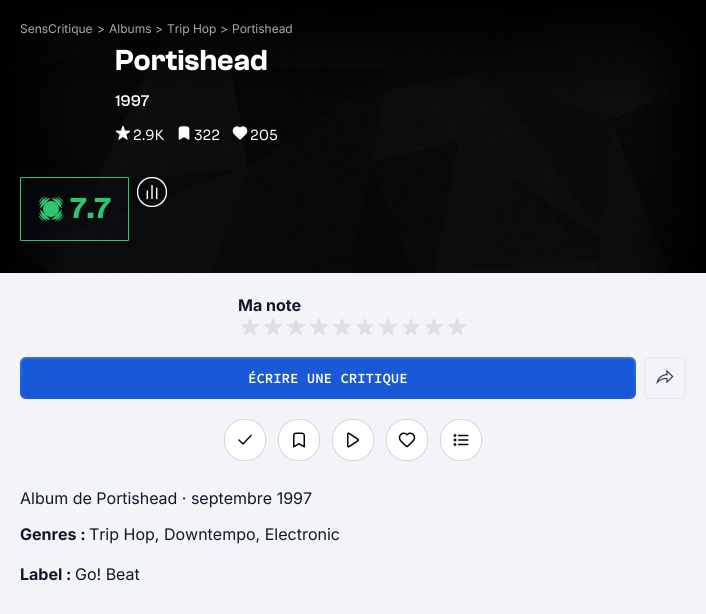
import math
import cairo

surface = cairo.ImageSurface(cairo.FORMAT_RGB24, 706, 614)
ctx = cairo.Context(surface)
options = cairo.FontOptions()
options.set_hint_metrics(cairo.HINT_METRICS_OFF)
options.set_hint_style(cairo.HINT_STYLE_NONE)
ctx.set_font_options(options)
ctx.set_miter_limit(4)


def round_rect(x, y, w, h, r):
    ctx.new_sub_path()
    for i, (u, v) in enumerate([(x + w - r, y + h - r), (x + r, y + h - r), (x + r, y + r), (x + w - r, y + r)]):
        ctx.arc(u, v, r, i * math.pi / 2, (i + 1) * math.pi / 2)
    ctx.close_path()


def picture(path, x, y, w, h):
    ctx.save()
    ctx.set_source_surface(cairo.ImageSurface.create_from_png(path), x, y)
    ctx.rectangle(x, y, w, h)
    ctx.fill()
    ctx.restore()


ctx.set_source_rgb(0.949, 0.957, 0.969)
ctx.paint()
picture("img1.png", 0, 0, 706, 273)
ctx.select_font_face("Inter")
ctx.set_font_size(12)
ctx.set_source_rgb(0.651, 0.667, 0.686)
ctx.move_to(20, 33)
ctx.show_text("SensCritique")
ctx.move_to(97, 33)
ctx.show_text(">")
ctx.move_to(109, 33)
ctx.show_text("Albums")
ctx.move_to(155, 33)
ctx.show_text(">")
ctx.move_to(167, 33)
ctx.show_text("Trip Hop")
ctx.move_to(220, 33)
ctx.show_text(">")
ctx.move_to(232, 33)
ctx.show_text("Portishead")
ctx.select_font_face("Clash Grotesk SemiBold")
ctx.set_font_size(30)
ctx.set_source_rgb(1, 1, 1)
ctx.move_to(115, 70)
ctx.show_text("Portishead")
ctx.select_font_face("Clash Grotesk Medium")
ctx.set_font_size(16)
ctx.move_to(115, 106)
ctx.show_text("1997")
picture("img2.png", 115, 125, 16, 15)
ctx.select_font_face("Sora")
ctx.set_font_size(14)
ctx.move_to(133, 140)
ctx.show_text("2.9K")
picture("img3.png", 178, 126, 12, 14)
ctx.move_to(194, 140)
ctx.show_text("322")
picture("img4.png", 232, 126, 16, 14)
ctx.move_to(250, 140)
ctx.show_text("205")
ctx.set_source_rgba(0.047, 0.067, 0.114, 0.3)
round_rect(20.5, 177.5, 108, 63, 0.5)
ctx.fill_preserve()
ctx.set_source_rgb(0.184, 0.769, 0.435)
ctx.set_line_width(1)
ctx.stroke()
picture("img5.png", 38, 196, 26, 26)
ctx.select_font_face("Clash Grotesk SemiBold")
ctx.set_font_size(30)
ctx.move_to(70, 218)
ctx.show_text("7.7")
picture("img6.png", 137, 177, 30, 30)
ctx.select_font_face("Inter", cairo.FONT_SLANT_NORMAL, cairo.FONT_WEIGHT_BOLD)
ctx.set_font_size(16)
ctx.set_source_rgb(0.063, 0.094, 0.157)
ctx.move_to(238, 311)
ctx.show_text("Ma note")
picture("img7.png", 241, 318, 18, 17)
picture("img7.png", 264, 318, 18, 17)
picture("img7.png", 287, 318, 18, 17)
picture("img7.png", 310, 318, 18, 17)
picture("img7.png", 333, 318, 18, 17)
picture("img7.png", 356, 318, 18, 17)
picture("img7.png", 379, 318, 18, 17)
picture("img7.png", 402, 318, 18, 17)
picture("img7.png", 425, 318, 18, 17)
picture("img7.png", 448, 318, 18, 17)
gradient = cairo.LinearGradient(328, 357, 328, 399)
gradient.add_color_stop_rgba(0, 0.208, 0.427, 0.863, 1)
gradient.add_color_stop_rgba(1, 0.102, 0.353, 0.843, 1)
ctx.set_source(gradient)
round_rect(20, 357, 616, 42, 6)
ctx.fill()
ctx.set_source_rgb(0.098, 0.349, 0.843)
round_rect(22, 359, 612, 38, 4)
ctx.fill()
ctx.select_font_face("Source Code Pro SemiBold")
ctx.set_font_size(14)
ctx.set_source_rgb(1, 1, 1)
ctx.move_to(248, 383)
ctx.show_text("ÉCRIRE UNE CRITIQUE")
round_rect(644.5, 357.5, 41, 41, 5.5)
ctx.set_source_rgb(0.894, 0.906, 0.925)
ctx.stroke()
picture("img8.png", 656, 369, 18, 15)
ctx.set_source_rgb(1, 1, 1)
round_rect(224.5, 419.5, 41, 41, 19.5)
ctx.fill_preserve()
ctx.set_source_rgb(0.816, 0.835, 0.867)
ctx.stroke()
ctx.save()
round_rect(225, 420, 40, 40, 19)
ctx.clip()
ctx.set_source_rgb(1, 1, 1)
ctx.arc(245, 440, 20, 0, 2 * math.pi)
ctx.fill()
ctx.restore()
ctx.new_path()
ctx.move_to(251, 435.5)
ctx.line_to(243, 444)
ctx.line_to(239, 440)
ctx.set_source_rgb(0, 0, 0)
ctx.set_line_width(1.4)
ctx.set_line_cap(cairo.LINE_CAP_ROUND)
ctx.set_line_join(cairo.LINE_JOIN_ROUND)
ctx.stroke()
ctx.set_source_rgb(1, 1, 1)
round_rect(278.5, 419.5, 41, 41, 19.5)
ctx.fill_preserve()
ctx.set_source_rgb(0.816, 0.835, 0.867)
ctx.set_line_width(1)
ctx.set_line_cap(cairo.LINE_CAP_BUTT)
ctx.set_line_join(cairo.LINE_JOIN_MITER)
ctx.stroke()
ctx.save()
round_rect(279, 420, 40, 40, 19)
ctx.clip()
ctx.set_source_rgb(1, 1, 1)
ctx.arc(299, 440, 20, 0, 2 * math.pi)
ctx.fill()
ctx.restore()
picture("img9.png", 293, 432, 12, 16)
ctx.set_source_rgb(1, 1, 1)
round_rect(332.5, 419.5, 41, 41, 19.5)
ctx.fill_preserve()
ctx.set_source_rgb(0.816, 0.835, 0.867)
ctx.stroke()
ctx.save()
round_rect(333, 420, 40, 40, 19)
ctx.clip()
ctx.set_source_rgb(1, 1, 1)
ctx.arc(353, 440, 20, 0, 2 * math.pi)
ctx.fill()
ctx.restore()
picture("img10.png", 347, 432, 12, 16)
ctx.set_source_rgb(1, 1, 1)
round_rect(386.5, 419.5, 41, 41, 19.5)
ctx.fill_preserve()
ctx.set_source_rgb(0.816, 0.835, 0.867)
ctx.stroke()
ctx.save()
round_rect(387, 420, 40, 40, 19)
ctx.clip()
ctx.set_source_rgb(1, 1, 1)
ctx.arc(407, 440, 20, 0, 2 * math.pi)
ctx.fill()
ctx.restore()
picture("img11.png", 398, 432, 18, 16)
ctx.set_source_rgb(1, 1, 1)
round_rect(440.5, 419.5, 41, 41, 19.5)
ctx.fill_preserve()
ctx.set_source_rgb(0.816, 0.835, 0.867)
ctx.stroke()
ctx.save()
round_rect(441, 420, 40, 40, 19)
ctx.clip()
ctx.set_source_rgb(1, 1, 1)
ctx.arc(461, 440, 20, 0, 2 * math.pi)
ctx.fill()
ctx.restore()
picture("img12.png", 453, 434, 16, 12)
ctx.select_font_face("Inter")
ctx.set_font_size(16)
ctx.set_source_rgb(0.063, 0.094, 0.157)
ctx.move_to(20, 504)
ctx.show_text("Album de Portishead · septembre 1997")
ctx.select_font_face("Inter", cairo.FONT_SLANT_NORMAL, cairo.FONT_WEIGHT_BOLD)
ctx.move_to(20, 540)
ctx.show_text("Genres :")
ctx.select_font_face("Inter")
ctx.move_to(89, 540)
ctx.show_text("Trip Hop, Downtempo, Electronic")
ctx.select_font_face("Inter", cairo.FONT_SLANT_NORMAL, cairo.FONT_WEIGHT_BOLD)
ctx.move_to(20, 580)
ctx.show_text("Label :")
ctx.select_font_face("Inter")
ctx.move_to(75, 580)
ctx.show_text("Go! Beat")
surface.write_to_png("page.png")
